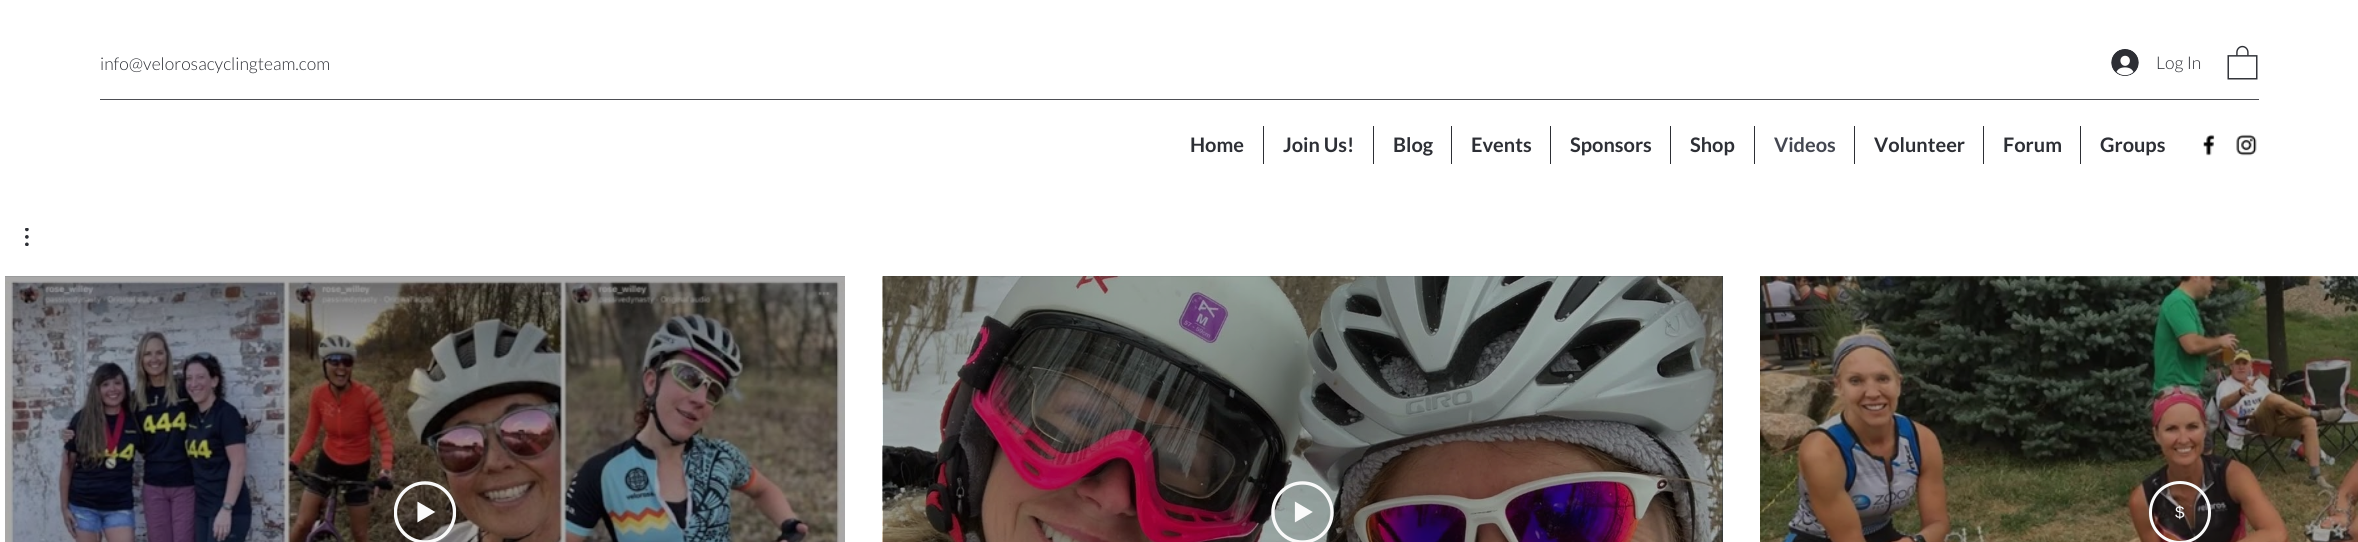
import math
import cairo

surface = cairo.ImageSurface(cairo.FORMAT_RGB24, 2358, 542)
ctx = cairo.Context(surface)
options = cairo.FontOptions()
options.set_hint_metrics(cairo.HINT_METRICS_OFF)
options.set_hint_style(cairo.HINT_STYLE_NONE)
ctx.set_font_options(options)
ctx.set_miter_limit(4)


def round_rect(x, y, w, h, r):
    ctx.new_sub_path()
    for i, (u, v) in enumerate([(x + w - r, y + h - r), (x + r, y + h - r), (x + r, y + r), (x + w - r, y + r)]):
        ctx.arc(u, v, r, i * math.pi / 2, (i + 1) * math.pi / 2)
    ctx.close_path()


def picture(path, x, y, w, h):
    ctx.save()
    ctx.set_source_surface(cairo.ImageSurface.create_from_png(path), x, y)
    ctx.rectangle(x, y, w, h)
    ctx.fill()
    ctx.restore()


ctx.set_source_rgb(1, 1, 1)
ctx.paint()
ctx.select_font_face("Lato Light")
ctx.set_font_size(17.5)
ctx.set_source_rgb(0.176, 0.184, 0.208)
ctx.move_to(100, 70)
ctx.show_text("info@velorosacyclingteam.com")
picture("img1.png", 2111, 49, 28, 27)
ctx.move_to(2156, 69)
ctx.show_text("Log In")
picture("img2.png", 2227, 45, 31, 35)
ctx.set_source_rgb(0.302, 0.306, 0.325)
ctx.rectangle(100, 99, 2159, 1)
ctx.fill()
ctx.select_font_face("Lato", cairo.FONT_SLANT_NORMAL, cairo.FONT_WEIGHT_BOLD)
ctx.set_font_size(20)
ctx.set_source_rgb(0.176, 0.184, 0.208)
ctx.move_to(1190, 152)
ctx.show_text("Home")
ctx.rectangle(1263, 126, 1, 38)
ctx.fill()
ctx.move_to(1283, 152)
ctx.show_text("Join Us!")
ctx.rectangle(1373, 126, 1, 38)
ctx.fill()
ctx.move_to(1393, 152)
ctx.show_text("Blog")
ctx.rectangle(1451, 126, 1, 38)
ctx.fill()
ctx.move_to(1471, 152)
ctx.show_text("Events")
ctx.rectangle(1550, 126, 1, 38)
ctx.fill()
ctx.move_to(1570, 152)
ctx.show_text("Sponsors")
ctx.rectangle(1670, 126, 1, 38)
ctx.fill()
ctx.move_to(1690, 152)
ctx.show_text("Shop")
ctx.rectangle(1754, 126, 1, 38)
ctx.fill()
ctx.set_source_rgb(0.267, 0.278, 0.318)
ctx.move_to(1774, 152)
ctx.show_text("Videos")
ctx.set_source_rgb(0.176, 0.184, 0.208)
ctx.rectangle(1854, 126, 1, 38)
ctx.fill()
ctx.move_to(1874, 152)
ctx.show_text("Volunteer")
ctx.rectangle(1983, 126, 1, 38)
ctx.fill()
ctx.move_to(2003, 152)
ctx.show_text("Forum")
ctx.rectangle(2080, 126, 1, 38)
ctx.fill()
ctx.move_to(2100, 152)
ctx.show_text("Groups")
picture("img3.png", 2203, 134, 12, 22)
picture("img4.png", 2236, 134, 21, 22)
picture("img5.png", 25, 228, 4, 18)
picture("img6.png", 5, 277, 840, 265)
ctx.set_source_rgb(0.604, 0.608, 0.612)
ctx.rectangle(5, 276, 840, 1)
ctx.fill()
picture("img7.png", 394, 481, 62, 61)
ctx.set_source_rgb(0.145, 0.188, 0.243)
ctx.rectangle(883, 276, 840, 266)
ctx.fill()
picture("img8.png", 882, 276, 841, 266)
picture("img9.png", 882, 276, 841, 266)
picture("img10.png", 1271, 481, 63, 61)
picture("img11.png", 1760, 276, 598, 266)
picture("img12.png", 1760, 276, 598, 1)
round_rect(2150.5, 482.5, 59, 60, 29.5)
ctx.set_source_rgb(0.98, 0.98, 0.98)
ctx.set_line_width(3)
ctx.stroke()
ctx.select_font_face("Liberation Sans")
ctx.set_font_size(17)
ctx.move_to(2175, 518)
ctx.show_text("$")
surface.write_to_png("page.png")
